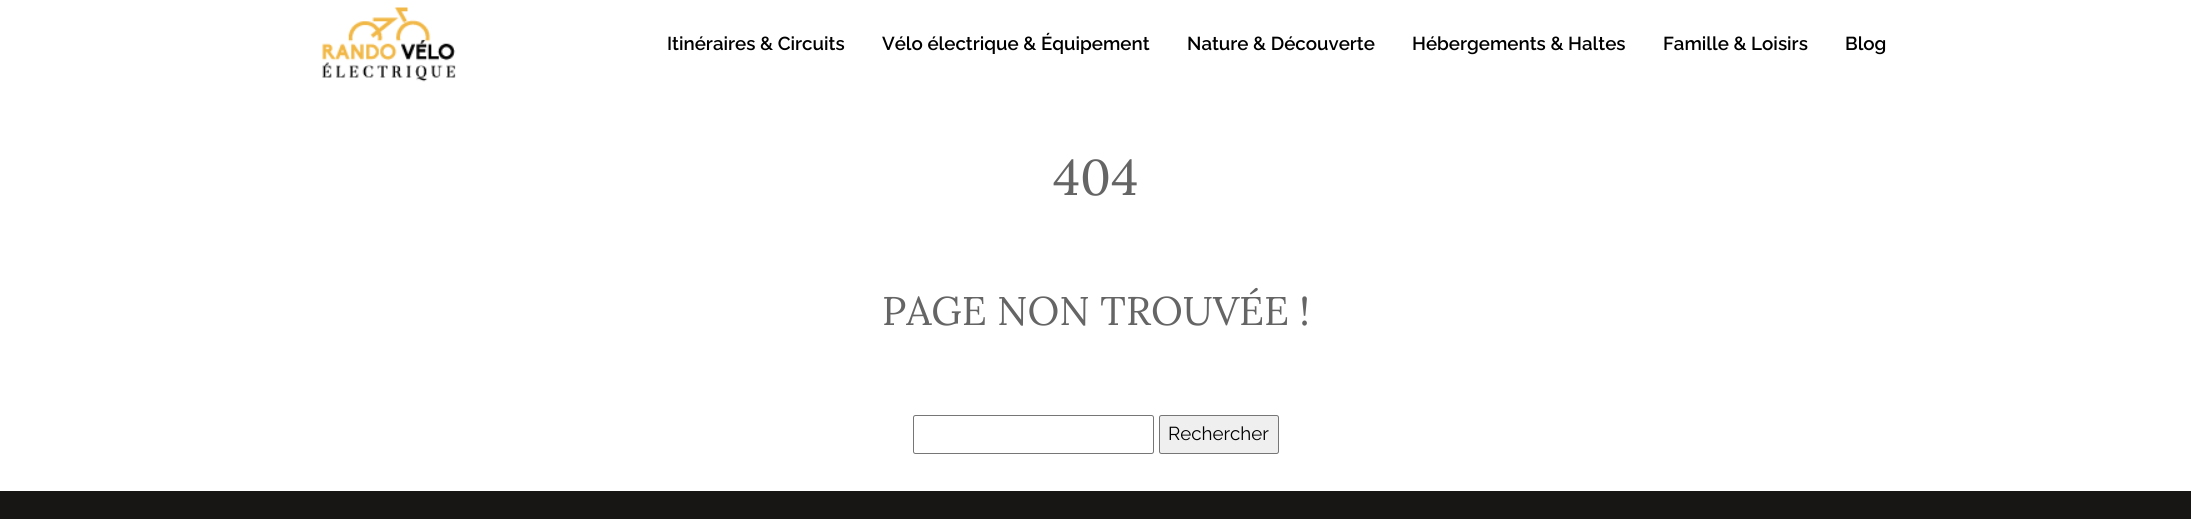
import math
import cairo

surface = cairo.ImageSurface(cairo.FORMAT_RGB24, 2191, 519)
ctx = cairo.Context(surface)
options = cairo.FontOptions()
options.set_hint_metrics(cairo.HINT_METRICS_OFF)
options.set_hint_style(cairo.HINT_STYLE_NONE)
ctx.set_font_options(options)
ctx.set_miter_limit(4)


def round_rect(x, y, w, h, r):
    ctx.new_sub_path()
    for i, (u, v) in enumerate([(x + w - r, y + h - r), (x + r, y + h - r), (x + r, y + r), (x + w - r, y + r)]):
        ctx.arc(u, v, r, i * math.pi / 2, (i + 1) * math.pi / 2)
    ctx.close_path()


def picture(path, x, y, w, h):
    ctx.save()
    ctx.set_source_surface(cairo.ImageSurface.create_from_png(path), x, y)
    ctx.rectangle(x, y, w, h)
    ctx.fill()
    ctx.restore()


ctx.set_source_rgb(1, 1, 1)
ctx.paint()
picture("img1.png", 322, 7, 134, 75)
ctx.select_font_face("Raleway SemiBold")
ctx.set_font_size(18.75)
ctx.set_source_rgb(0, 0, 0)
ctx.move_to(667, 50)
ctx.show_text("Itinéraires & Circuits")
ctx.move_to(882, 50)
ctx.show_text("Vélo électrique & Équipement")
ctx.move_to(1187, 50)
ctx.show_text("Nature & Découverte")
ctx.move_to(1412, 50)
ctx.show_text("Hébergements & Haltes")
ctx.move_to(1663, 50)
ctx.show_text("Famille & Loisirs")
ctx.move_to(1845, 50)
ctx.show_text("Blog")
ctx.select_font_face("Lora")
ctx.set_font_size(50)
ctx.set_source_rgb(0.396, 0.396, 0.396)
ctx.move_to(1053, 195)
ctx.show_text("404")
ctx.set_font_size(40)
ctx.move_to(882, 325)
ctx.show_text("PAGE NON TROUVÉE !")
round_rect(913.5, 415.5, 240, 38, 2)
ctx.set_source_rgb(0.463, 0.463, 0.463)
ctx.set_line_width(1)
ctx.stroke()
ctx.set_source_rgb(0.937, 0.937, 0.937)
round_rect(1159.5, 415.5, 119, 38, 2)
ctx.fill_preserve()
ctx.set_source_rgb(0.463, 0.463, 0.463)
ctx.stroke()
ctx.select_font_face("Raleway")
ctx.set_font_size(18.75)
ctx.set_source_rgb(0, 0, 0)
ctx.move_to(1168, 440)
ctx.show_text("Rechercher")
ctx.set_source_rgb(0.09, 0.086, 0.082)
ctx.rectangle(0, 491, 2191, 28)
ctx.fill()
surface.write_to_png("page.png")
